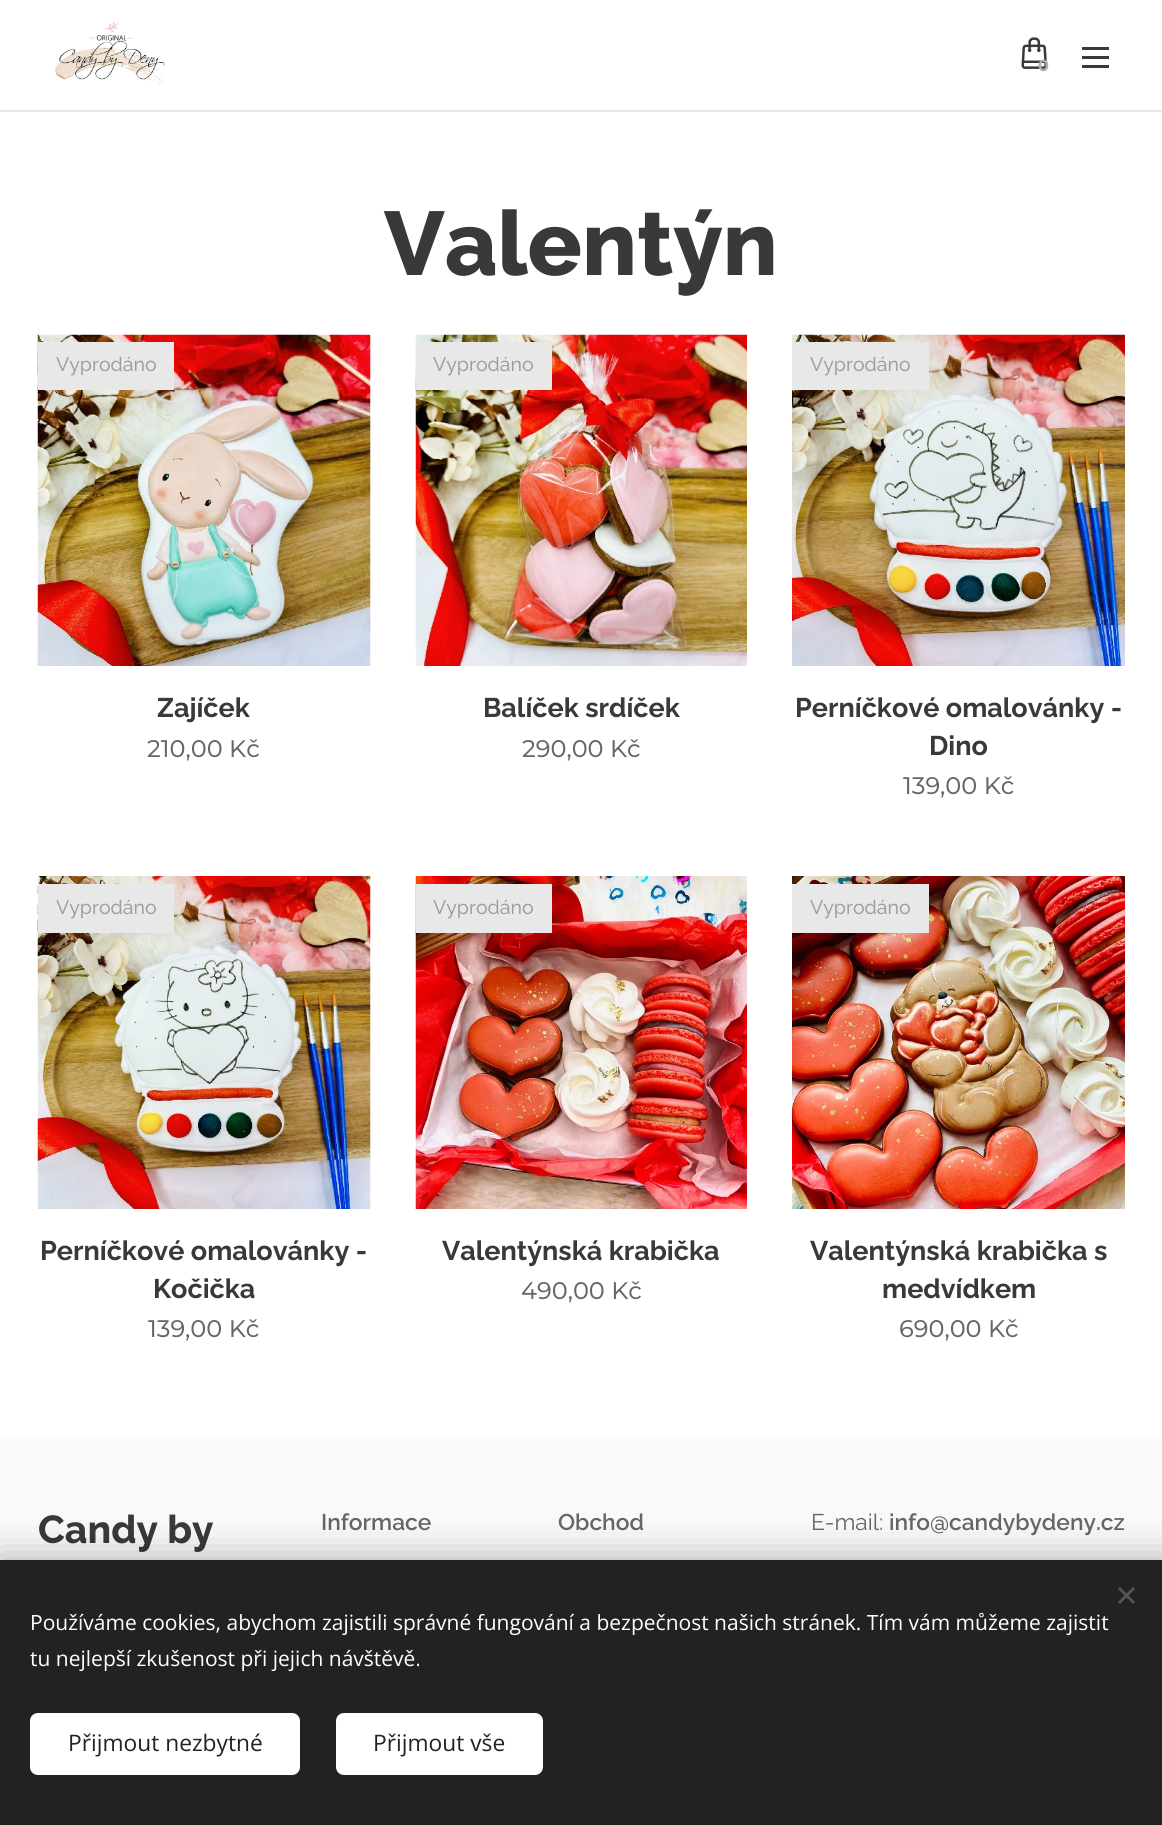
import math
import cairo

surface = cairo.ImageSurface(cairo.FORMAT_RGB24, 1162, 1825)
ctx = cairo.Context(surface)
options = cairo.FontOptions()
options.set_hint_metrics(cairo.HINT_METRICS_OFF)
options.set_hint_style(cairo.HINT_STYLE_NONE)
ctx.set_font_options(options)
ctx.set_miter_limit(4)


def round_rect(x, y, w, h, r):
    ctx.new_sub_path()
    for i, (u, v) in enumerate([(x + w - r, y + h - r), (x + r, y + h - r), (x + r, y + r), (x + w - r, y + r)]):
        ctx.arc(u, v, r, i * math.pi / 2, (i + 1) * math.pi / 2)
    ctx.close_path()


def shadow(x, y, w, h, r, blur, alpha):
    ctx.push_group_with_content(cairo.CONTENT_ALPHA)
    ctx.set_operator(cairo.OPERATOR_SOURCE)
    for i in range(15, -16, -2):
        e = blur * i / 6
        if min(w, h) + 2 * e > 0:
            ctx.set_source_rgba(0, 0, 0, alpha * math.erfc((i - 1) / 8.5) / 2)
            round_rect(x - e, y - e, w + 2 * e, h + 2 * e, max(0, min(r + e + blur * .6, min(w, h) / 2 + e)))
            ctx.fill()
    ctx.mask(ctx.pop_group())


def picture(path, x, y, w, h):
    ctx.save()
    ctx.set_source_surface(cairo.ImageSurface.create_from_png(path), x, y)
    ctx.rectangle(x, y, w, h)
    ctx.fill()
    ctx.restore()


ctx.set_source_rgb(1, 1, 1)
ctx.paint()
picture("img1.png", 55, 22, 112, 63)
picture("img2.png", 1021, 37, 26, 32)
ctx.select_font_face("Montserrat", cairo.FONT_SLANT_NORMAL, cairo.FONT_WEIGHT_BOLD)
ctx.set_font_size(16)
ctx.set_source_rgb(0.682, 0.682, 0.682)
ctx.move_to(1038, 71)
ctx.show_text("0")
ctx.set_source_rgb(0.224, 0.224, 0.224)
ctx.rectangle(1082, 56, 27, 3)
ctx.fill()
ctx.rectangle(1082, 47, 27, 3)
ctx.fill()
ctx.rectangle(1082, 65, 27, 3)
ctx.fill()
ctx.set_source_rgb(0.91, 0.91, 0.91)
ctx.rectangle(0, 110, 1162, 2)
ctx.fill()
ctx.select_font_face("Raleway ExtraBold")
ctx.set_font_size(90)
ctx.set_source_rgb(0.224, 0.224, 0.224)
ctx.move_to(384, 275)
ctx.show_text("Valentýn")
picture("img3.png", 37, 334, 334, 332)
ctx.set_source_rgb(0.91, 0.91, 0.91)
ctx.rectangle(38, 342, 136, 48)
ctx.fill()
ctx.select_font_face("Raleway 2")
ctx.set_font_size(19.5)
ctx.set_source_rgb(0.616, 0.616, 0.616)
ctx.move_to(56, 371)
ctx.show_text("Vyprodáno")
ctx.select_font_face("Raleway 2", cairo.FONT_SLANT_NORMAL, cairo.FONT_WEIGHT_BOLD)
ctx.set_font_size(27)
ctx.set_source_rgb(0.224, 0.224, 0.224)
ctx.move_to(157, 717)
ctx.show_text("Zajíček")
ctx.select_font_face("Montserrat")
ctx.set_font_size(24)
ctx.set_source_rgb(0.4, 0.4, 0.4)
ctx.move_to(147, 757)
ctx.show_text("210,00 Kč")
picture("img4.png", 415, 334, 332, 332)
ctx.set_source_rgb(0.91, 0.91, 0.91)
ctx.rectangle(416, 342, 136, 48)
ctx.fill()
ctx.select_font_face("Raleway 2")
ctx.set_font_size(19.5)
ctx.set_source_rgb(0.616, 0.616, 0.616)
ctx.move_to(433, 371)
ctx.show_text("Vyprodáno")
ctx.select_font_face("Raleway 2", cairo.FONT_SLANT_NORMAL, cairo.FONT_WEIGHT_BOLD)
ctx.set_font_size(27)
ctx.set_source_rgb(0.224, 0.224, 0.224)
ctx.move_to(483, 717)
ctx.show_text("Balíček srdíček")
ctx.select_font_face("Montserrat")
ctx.set_font_size(24)
ctx.set_source_rgb(0.4, 0.4, 0.4)
ctx.move_to(522, 757)
ctx.show_text("290,00 Kč")
picture("img5.png", 792, 334, 333, 332)
ctx.set_source_rgb(0.91, 0.91, 0.91)
ctx.rectangle(792, 342, 137, 48)
ctx.fill()
ctx.select_font_face("Raleway 2")
ctx.set_font_size(19.5)
ctx.set_source_rgb(0.616, 0.616, 0.616)
ctx.move_to(810, 371)
ctx.show_text("Vyprodáno")
ctx.select_font_face("Raleway 2", cairo.FONT_SLANT_NORMAL, cairo.FONT_WEIGHT_BOLD)
ctx.set_font_size(27)
ctx.set_source_rgb(0.224, 0.224, 0.224)
ctx.move_to(795, 717)
ctx.show_text("Perníčkové omalovánky -")
ctx.move_to(929, 755)
ctx.show_text("Dino")
ctx.select_font_face("Montserrat")
ctx.set_font_size(24)
ctx.set_source_rgb(0.4, 0.4, 0.4)
ctx.move_to(903, 794)
ctx.show_text("139,00 Kč")
picture("img6.png", 37, 876, 334, 333)
ctx.set_source_rgb(0.91, 0.91, 0.91)
ctx.rectangle(38, 884, 136, 49)
ctx.fill()
ctx.select_font_face("Raleway 2")
ctx.set_font_size(19.5)
ctx.set_source_rgb(0.616, 0.616, 0.616)
ctx.move_to(56, 914)
ctx.show_text("Vyprodáno")
ctx.select_font_face("Raleway 2", cairo.FONT_SLANT_NORMAL, cairo.FONT_WEIGHT_BOLD)
ctx.set_font_size(27)
ctx.set_source_rgb(0.224, 0.224, 0.224)
ctx.move_to(40, 1260)
ctx.show_text("Perníčkové omalovánky -")
ctx.move_to(153, 1298)
ctx.show_text("Kočička")
ctx.select_font_face("Montserrat")
ctx.set_font_size(24)
ctx.set_source_rgb(0.4, 0.4, 0.4)
ctx.move_to(148, 1337)
ctx.show_text("139,00 Kč")
picture("img7.png", 415, 876, 332, 333)
ctx.set_source_rgb(0.91, 0.91, 0.91)
ctx.rectangle(416, 884, 136, 49)
ctx.fill()
ctx.select_font_face("Raleway 2")
ctx.set_font_size(19.5)
ctx.set_source_rgb(0.616, 0.616, 0.616)
ctx.move_to(433, 914)
ctx.show_text("Vyprodáno")
ctx.select_font_face("Raleway 2", cairo.FONT_SLANT_NORMAL, cairo.FONT_WEIGHT_BOLD)
ctx.set_font_size(27)
ctx.set_source_rgb(0.224, 0.224, 0.224)
ctx.move_to(442, 1260)
ctx.show_text("Valentýnská krabička")
ctx.select_font_face("Montserrat")
ctx.set_font_size(24)
ctx.set_source_rgb(0.4, 0.4, 0.4)
ctx.move_to(521, 1299)
ctx.show_text("490,00 Kč")
picture("img8.png", 792, 876, 333, 333)
ctx.set_source_rgb(0.91, 0.91, 0.91)
ctx.rectangle(792, 884, 137, 49)
ctx.fill()
ctx.select_font_face("Raleway 2")
ctx.set_font_size(19.5)
ctx.set_source_rgb(0.616, 0.616, 0.616)
ctx.move_to(810, 914)
ctx.show_text("Vyprodáno")
ctx.select_font_face("Raleway 2", cairo.FONT_SLANT_NORMAL, cairo.FONT_WEIGHT_BOLD)
ctx.set_font_size(27)
ctx.set_source_rgb(0.224, 0.224, 0.224)
ctx.move_to(810, 1260)
ctx.show_text("Valentýnská krabička s")
ctx.move_to(882, 1298)
ctx.show_text("medvídkem")
ctx.select_font_face("Montserrat")
ctx.set_font_size(24)
ctx.set_source_rgb(0.4, 0.4, 0.4)
ctx.move_to(899, 1337)
ctx.show_text("690,00 Kč")
ctx.set_source_rgb(0.976, 0.969, 0.98)
ctx.rectangle(0, 1439, 1162, 121)
ctx.fill()
ctx.select_font_face("Raleway", cairo.FONT_SLANT_NORMAL, cairo.FONT_WEIGHT_BOLD)
ctx.set_font_size(39)
ctx.set_source_rgb(0.224, 0.224, 0.224)
ctx.move_to(38, 1543)
ctx.show_text("Candy by")
ctx.select_font_face("Raleway SemiBold")
ctx.set_font_size(22.75)
ctx.set_source_rgb(0.4, 0.4, 0.4)
ctx.move_to(321, 1530)
ctx.show_text("Informace")
ctx.move_to(558, 1530)
ctx.show_text("Obchod")
ctx.select_font_face("Raleway")
ctx.move_to(811, 1530)
ctx.show_text("E-mail:")
ctx.select_font_face("Raleway SemiBold")
ctx.move_to(889, 1530)
ctx.show_text("info@candybydeny.cz")
ctx.set_source_rgb(0, 0, 0)
shadow(0, 1560, 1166, 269, 0, 19, 0.33)
ctx.set_source_rgb(0.133, 0.133, 0.133)
ctx.rectangle(0, 1560, 1162, 265)
ctx.fill()
ctx.set_source_rgb(0.333, 0.333, 0.333)
ctx.new_path()
ctx.move_to(1118, 1602)
ctx.line_to(1133, 1587)
ctx.line_to(1135, 1589)
ctx.line_to(1120, 1604)
ctx.close_path()
ctx.fill()
ctx.new_path()
ctx.move_to(1120, 1587)
ctx.line_to(1135, 1602)
ctx.line_to(1133, 1604)
ctx.line_to(1118, 1589)
ctx.close_path()
ctx.fill()
ctx.select_font_face("Open Sans")
ctx.set_font_size(21)
ctx.set_source_rgb(1, 1, 1)
ctx.move_to(30, 1630)
ctx.show_text("Používáme cookies, abychom zajistili správné fungování a bezpečnost našich stránek. Tím vám můžeme zajistit")
ctx.move_to(30, 1666)
ctx.show_text("tu nejlepší zkušenost při jejich návštěvě.")
round_rect(30, 1713, 270, 62, 8)
ctx.fill()
ctx.set_font_size(22.75)
ctx.set_source_rgb(0.133, 0.133, 0.133)
ctx.move_to(68, 1751)
ctx.show_text("Přijmout nezbytné")
ctx.set_source_rgb(1, 1, 1)
round_rect(336, 1713, 207, 62, 8)
ctx.fill()
ctx.set_source_rgb(0.133, 0.133, 0.133)
ctx.move_to(373, 1751)
ctx.show_text("Přijmout vše")
surface.write_to_png("page.png")
